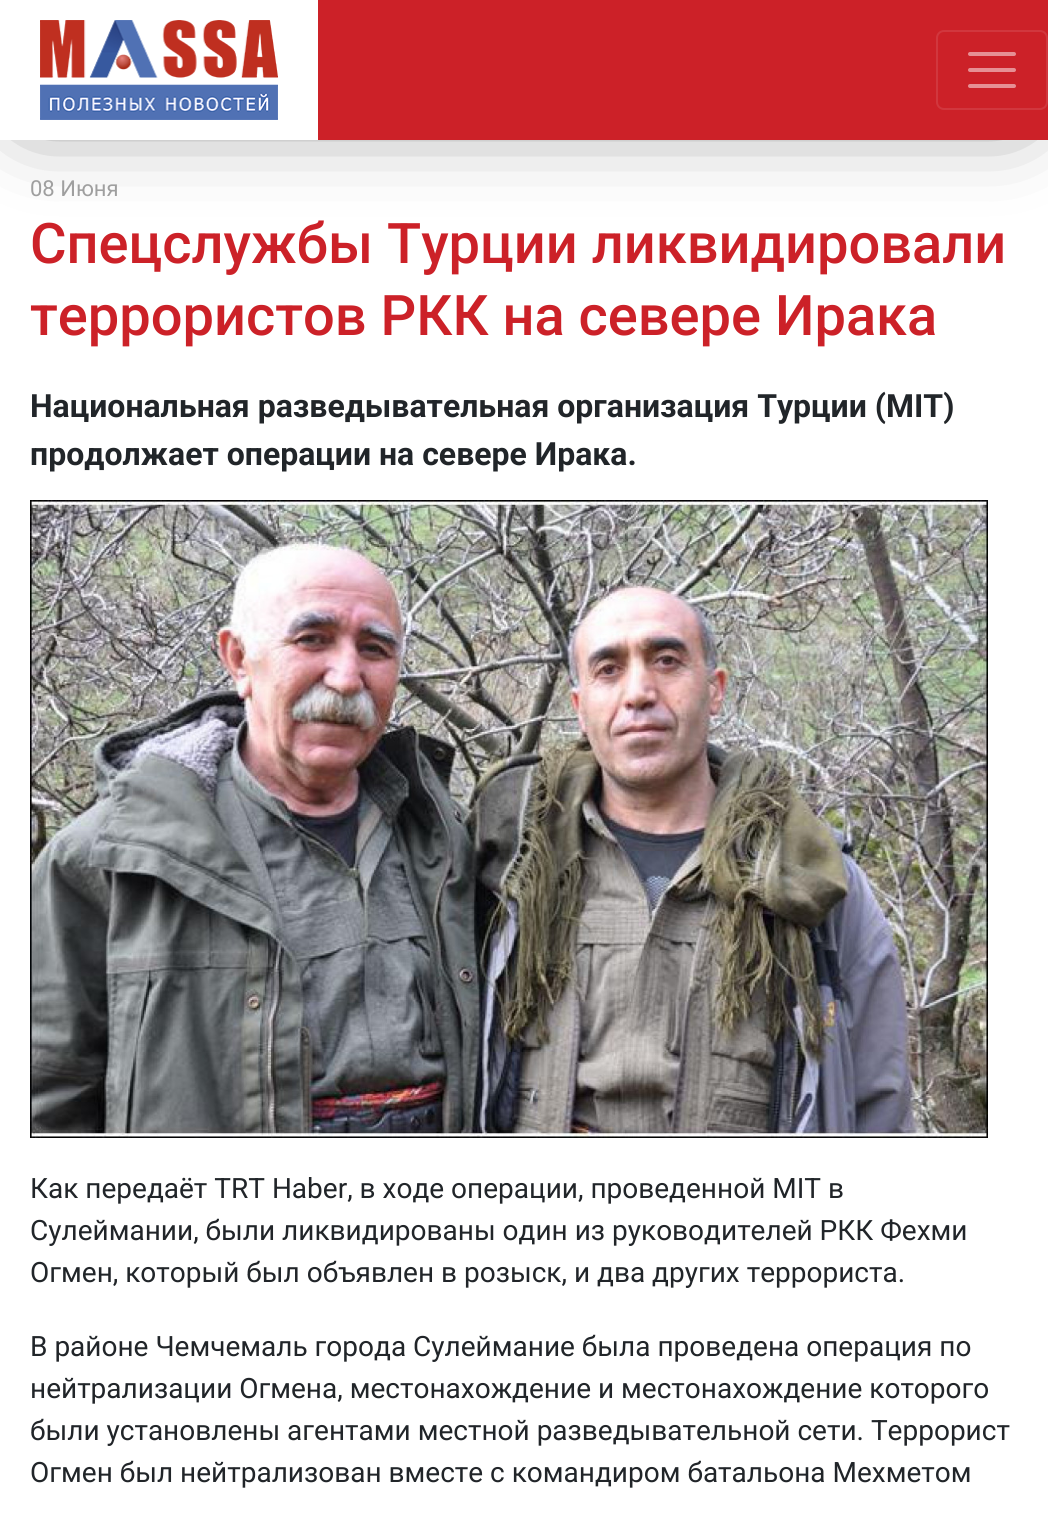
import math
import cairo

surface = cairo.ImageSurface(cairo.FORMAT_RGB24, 1048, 1513)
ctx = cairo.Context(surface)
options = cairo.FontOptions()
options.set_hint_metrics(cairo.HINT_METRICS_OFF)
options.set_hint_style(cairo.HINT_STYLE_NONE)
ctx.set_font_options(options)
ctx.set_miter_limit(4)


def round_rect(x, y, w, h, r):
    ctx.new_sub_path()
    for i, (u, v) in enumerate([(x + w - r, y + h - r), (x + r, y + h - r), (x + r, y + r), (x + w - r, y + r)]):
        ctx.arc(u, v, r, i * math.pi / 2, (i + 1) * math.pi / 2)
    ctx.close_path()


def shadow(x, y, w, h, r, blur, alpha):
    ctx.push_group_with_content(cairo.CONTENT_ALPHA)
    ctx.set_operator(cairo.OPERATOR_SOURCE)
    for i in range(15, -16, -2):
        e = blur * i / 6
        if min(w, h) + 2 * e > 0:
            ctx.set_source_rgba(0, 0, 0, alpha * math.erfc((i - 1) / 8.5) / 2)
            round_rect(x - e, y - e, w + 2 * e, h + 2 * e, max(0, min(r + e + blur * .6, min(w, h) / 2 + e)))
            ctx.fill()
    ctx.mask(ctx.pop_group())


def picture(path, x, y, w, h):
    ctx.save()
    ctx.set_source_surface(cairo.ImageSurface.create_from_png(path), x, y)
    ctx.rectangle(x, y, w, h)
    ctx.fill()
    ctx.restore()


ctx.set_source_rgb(1, 1, 1)
ctx.paint()
ctx.set_source_rgb(0, 0, 0)
shadow(32, 28, 984, 76, 0, 45, 0.75)
ctx.set_source_rgb(0.8, 0.129, 0.157)
ctx.rectangle(318, 0, 730, 140)
ctx.fill()
ctx.set_source_rgb(1, 1, 1)
ctx.rectangle(0, 0, 318, 140)
ctx.fill()
picture("img1.png", 40, 20, 238, 100)
round_rect(937, 31, 110, 78, 7)
ctx.set_source_rgb(0.82, 0.216, 0.243)
ctx.stroke()
ctx.new_path()
ctx.move_to(970, 54)
ctx.line_to(1014, 54)
ctx.move_to(970, 70)
ctx.line_to(1014, 70)
ctx.move_to(970, 86)
ctx.line_to(1014, 86)
ctx.set_source_rgb(0.902, 0.565, 0.58)
ctx.set_line_width(4)
ctx.set_line_cap(cairo.LINE_CAP_ROUND)
ctx.stroke()
ctx.select_font_face("Roboto")
ctx.set_font_size(22)
ctx.set_source_rgb(0.624, 0.624, 0.624)
ctx.move_to(30, 196)
ctx.show_text("08 Июня")
ctx.select_font_face("Roboto Medium")
ctx.set_font_size(56)
ctx.set_source_rgb(0.8, 0.129, 0.157)
ctx.move_to(30, 263)
ctx.show_text("Спецслужбы Турции ликвидировали")
ctx.move_to(30, 335)
ctx.show_text("террористов РКК на севере Ирака")
ctx.select_font_face("Roboto", cairo.FONT_SLANT_NORMAL, cairo.FONT_WEIGHT_BOLD)
ctx.set_font_size(32)
ctx.set_source_rgb(0.129, 0.145, 0.161)
ctx.move_to(30, 417)
ctx.show_text("Национальная разведывательная организация Турции (MIT)")
ctx.move_to(30, 465)
ctx.show_text("продолжает операции на севере Ирака.")
picture("img2.png", 30, 500, 958, 638)
ctx.select_font_face("Roboto")
ctx.set_font_size(28)
ctx.move_to(30, 1198)
ctx.show_text("Как передаёт TRT Haber, в ходе операции, проведенной MIT в")
ctx.move_to(30, 1240)
ctx.show_text("Сулеймании, были ликвидированы один из руководителей РКК Фехми")
ctx.move_to(30, 1282)
ctx.show_text("Огмен, который был объявлен в розыск, и два других террориста.")
ctx.move_to(30, 1356)
ctx.show_text("В районе Чемчемаль города Сулеймание была проведена операция по")
ctx.move_to(30, 1398)
ctx.show_text("нейтрализации Огмена, местонахождение и местонахождение которого")
ctx.move_to(30, 1440)
ctx.show_text("были установлены агентами местной разведывательной сети. Террорист")
ctx.move_to(30, 1482)
ctx.show_text("Огмен был нейтрализован вместе с командиром батальона Мехметом")
surface.write_to_png("page.png")
